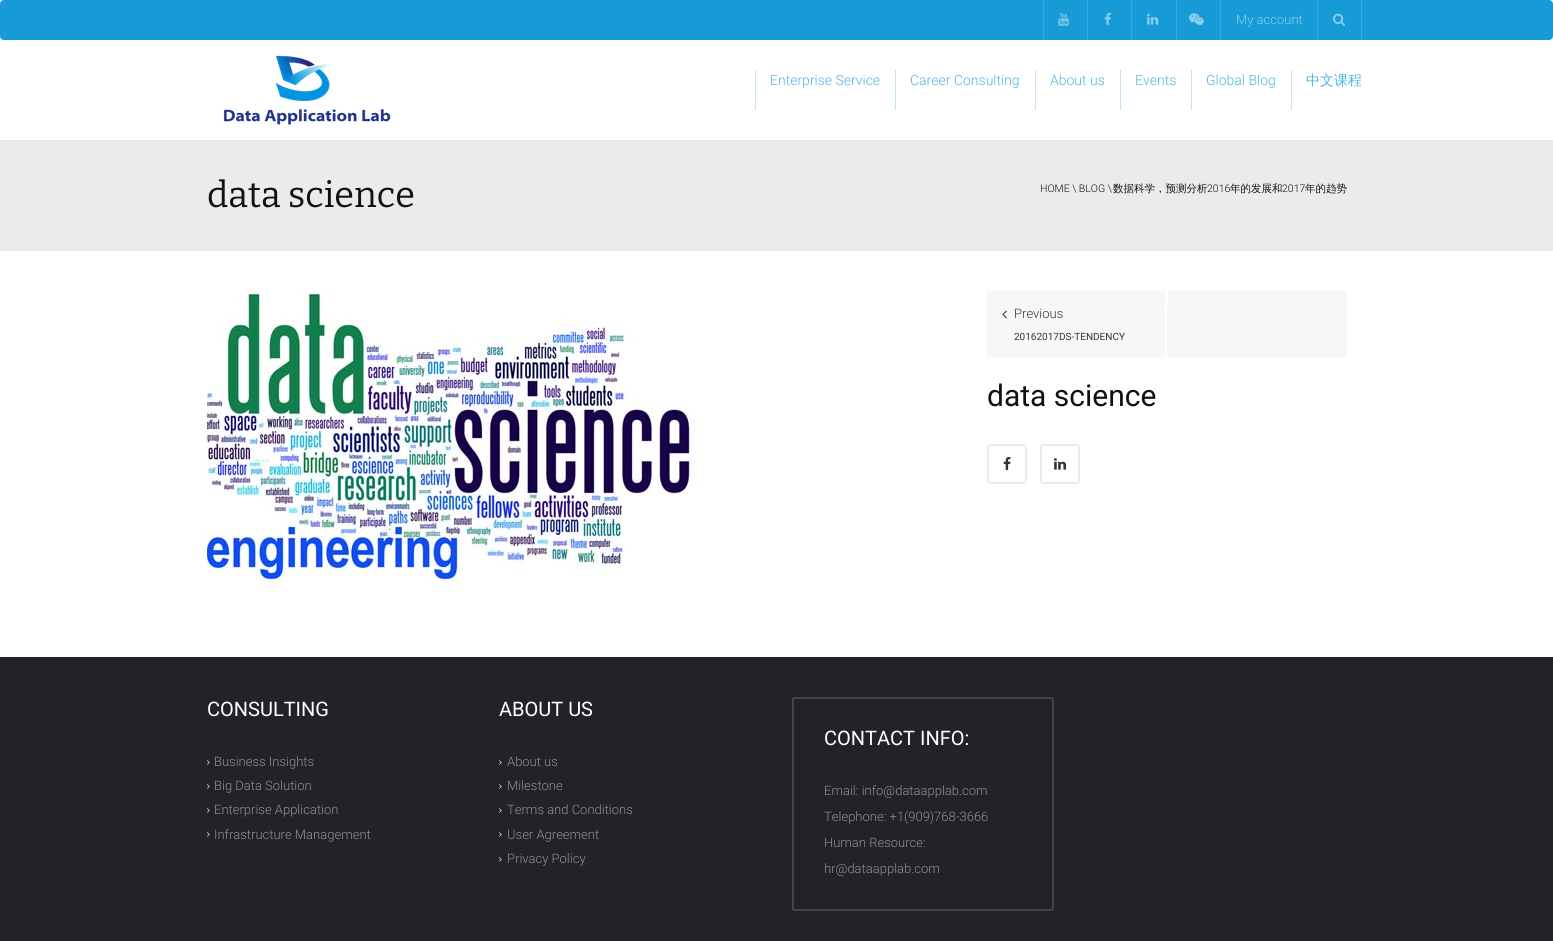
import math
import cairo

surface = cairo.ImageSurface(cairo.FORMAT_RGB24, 1553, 941)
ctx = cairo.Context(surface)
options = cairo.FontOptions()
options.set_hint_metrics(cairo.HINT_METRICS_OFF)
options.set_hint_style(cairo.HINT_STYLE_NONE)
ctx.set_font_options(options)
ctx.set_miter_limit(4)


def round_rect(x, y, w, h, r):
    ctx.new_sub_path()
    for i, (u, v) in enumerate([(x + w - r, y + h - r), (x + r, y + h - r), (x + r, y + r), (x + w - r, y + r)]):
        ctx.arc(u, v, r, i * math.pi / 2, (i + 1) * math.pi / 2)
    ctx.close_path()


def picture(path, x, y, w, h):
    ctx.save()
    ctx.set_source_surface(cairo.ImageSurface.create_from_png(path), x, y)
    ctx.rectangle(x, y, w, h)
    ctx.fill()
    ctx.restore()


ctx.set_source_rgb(1, 1, 1)
ctx.paint()
ctx.set_source_rgb(0.09, 0.608, 0.843)
round_rect(0, 0, 1553, 40, 4)
ctx.fill()
ctx.set_source_rgb(0.227, 0.667, 0.867)
ctx.rectangle(1043, 0, 1, 40)
ctx.fill()
picture("img1.png", 1058, 12, 11, 14)
ctx.rectangle(1087, 0, 1, 40)
ctx.fill()
picture("img2.png", 1104, 12, 7, 13)
ctx.rectangle(1131, 0, 1, 40)
ctx.fill()
picture("img3.png", 1147, 14, 12, 11)
ctx.rectangle(1176, 0, 1, 40)
ctx.fill()
picture("img4.png", 1189, 13, 15, 13)
ctx.rectangle(1220, 0, 1, 40)
ctx.fill()
ctx.select_font_face("Roboto Light")
ctx.set_font_size(13)
ctx.set_source_rgb(0.545, 0.804, 0.922)
ctx.move_to(1236, 24)
ctx.show_text("My account")
ctx.set_source_rgb(0.227, 0.667, 0.867)
ctx.rectangle(1361, 0, 1, 40)
ctx.fill()
ctx.rectangle(1317, 0, 1, 40)
ctx.fill()
picture("img5.png", 1333, 13, 12, 13)
picture("img6.png", 223, 55, 168, 70)
ctx.set_source_rgb(0.773, 0.902, 0.961)
ctx.rectangle(755, 70, 1, 40)
ctx.fill()
ctx.set_font_size(14)
ctx.set_source_rgb(0.318, 0.706, 0.882)
ctx.move_to(770, 85)
ctx.show_text("Enterprise Service")
ctx.set_source_rgb(0.773, 0.902, 0.961)
ctx.rectangle(895, 70, 1, 40)
ctx.fill()
ctx.set_source_rgb(0.318, 0.706, 0.882)
ctx.move_to(910, 85)
ctx.show_text("Career Consulting")
ctx.set_source_rgb(0.773, 0.902, 0.961)
ctx.rectangle(1035, 70, 1, 40)
ctx.fill()
ctx.set_source_rgb(0.318, 0.706, 0.882)
ctx.move_to(1050, 85)
ctx.show_text("About us")
ctx.set_source_rgb(0.773, 0.902, 0.961)
ctx.rectangle(1120, 70, 1, 40)
ctx.fill()
ctx.set_source_rgb(0.318, 0.706, 0.882)
ctx.move_to(1135, 85)
ctx.show_text("Events")
ctx.set_source_rgb(0.773, 0.902, 0.961)
ctx.rectangle(1191, 70, 1, 40)
ctx.fill()
ctx.set_source_rgb(0.318, 0.706, 0.882)
ctx.move_to(1206, 85)
ctx.show_text("Global Blog")
ctx.set_source_rgb(0.773, 0.902, 0.961)
ctx.rectangle(1291, 70, 1, 40)
ctx.fill()
ctx.select_font_face("WenQuanYi Zen Hei Medium")
ctx.set_source_rgb(0.318, 0.706, 0.882)
ctx.move_to(1306, 85)
ctx.show_text("中文课程")
ctx.set_source_rgb(0.918, 0.918, 0.918)
ctx.rectangle(0, 140, 1553, 111)
ctx.fill()
ctx.select_font_face("Bitter Thin")
ctx.set_font_size(36)
ctx.set_source_rgb(0.067, 0.067, 0.067)
ctx.move_to(207, 207)
ctx.show_text("data science")
ctx.select_font_face("Roboto Light")
ctx.set_font_size(10.5)
ctx.move_to(1040, 192)
ctx.show_text("HOME \\ BLOG \\")
ctx.select_font_face("WenQuanYi Zen Hei Medium")
ctx.move_to(1113, 192)
ctx.show_text("数据科学，预测分析")
ctx.select_font_face("Roboto Light")
ctx.move_to(1207, 192)
ctx.show_text("2016")
ctx.select_font_face("WenQuanYi Zen Hei Medium")
ctx.move_to(1230, 192)
ctx.show_text("年的发展和")
ctx.select_font_face("Roboto Light")
ctx.move_to(1282, 192)
ctx.show_text("2017")
ctx.select_font_face("WenQuanYi Zen Hei Medium")
ctx.move_to(1305, 192)
ctx.show_text("年的趋势")
picture("img7.png", 207, 291, 495, 296)
ctx.set_source_rgb(0.965, 0.965, 0.965)
ctx.rectangle(987, 291, 360, 66)
ctx.fill()
ctx.set_source_rgb(1, 1, 1)
ctx.rectangle(1167, 291, 1, 15)
ctx.fill()
ctx.rectangle(1165, 291, 2, 66)
ctx.fill()
picture("img8.png", 1002, 310, 5, 9)
ctx.select_font_face("Roboto Light")
ctx.set_font_size(13)
ctx.set_source_rgb(0.204, 0.204, 0.204)
ctx.move_to(1014, 318)
ctx.show_text("Previous")
ctx.select_font_face("Roboto")
ctx.set_font_size(10)
ctx.move_to(1014, 340)
ctx.show_text("20162017DS-TENDENCY")
ctx.set_font_size(30)
ctx.set_source_rgb(0.067, 0.067, 0.067)
ctx.move_to(987, 406)
ctx.show_text("data science")
round_rect(988, 445, 38, 38, 2)
ctx.set_source_rgb(0.918, 0.918, 0.918)
ctx.stroke()
picture("img9.png", 1003, 457, 8, 13)
round_rect(1041, 445, 38, 38, 2)
ctx.stroke()
picture("img10.png", 1054, 458, 12, 12)
ctx.set_source_rgb(0.129, 0.137, 0.153)
ctx.rectangle(0, 657, 1553, 284)
ctx.fill()
ctx.set_font_size(20)
ctx.set_source_rgb(1, 1, 1)
ctx.move_to(207, 716)
ctx.show_text("CONSULTING")
picture("img11.png", 207, 760, 3, 5)
ctx.select_font_face("Roboto Light")
ctx.set_font_size(13)
ctx.set_source_rgb(0.565, 0.569, 0.576)
ctx.move_to(214, 766)
ctx.show_text("Business Insights")
picture("img11.png", 207, 784, 3, 5)
ctx.move_to(214, 790)
ctx.show_text("Big Data Solution")
picture("img11.png", 207, 808, 3, 5)
ctx.move_to(214, 814)
ctx.show_text("Enterprise Application")
picture("img11.png", 207, 832, 3, 5)
ctx.move_to(214, 839)
ctx.show_text("Infrastructure Management")
ctx.select_font_face("Roboto")
ctx.set_font_size(20)
ctx.set_source_rgb(1, 1, 1)
ctx.move_to(499, 716)
ctx.show_text("ABOUT US")
picture("img11.png", 499, 760, 3, 5)
ctx.select_font_face("Roboto Light")
ctx.set_font_size(13)
ctx.set_source_rgb(0.565, 0.569, 0.576)
ctx.move_to(507, 766)
ctx.show_text("About us")
picture("img11.png", 499, 784, 3, 5)
ctx.move_to(507, 790)
ctx.show_text("Milestone")
picture("img11.png", 499, 808, 3, 5)
ctx.move_to(507, 814)
ctx.show_text("Terms and Conditions")
picture("img11.png", 499, 832, 3, 5)
ctx.move_to(507, 839)
ctx.show_text("User Agreement")
picture("img11.png", 499, 857, 3, 5)
ctx.move_to(507, 863)
ctx.show_text("Privacy Policy")
round_rect(793, 698, 260, 212, 1)
ctx.set_source_rgb(0.259, 0.267, 0.278)
ctx.stroke()
ctx.select_font_face("Roboto")
ctx.set_font_size(20)
ctx.set_source_rgb(1, 1, 1)
ctx.move_to(824, 745)
ctx.show_text("CONTACT INFO:")
ctx.select_font_face("Roboto Light")
ctx.set_font_size(13)
ctx.set_source_rgb(0.565, 0.569, 0.576)
ctx.move_to(824, 795)
ctx.show_text("Email: info@dataapplab.com")
ctx.move_to(824, 821)
ctx.show_text("Telephone: +1(909)768-3666")
ctx.move_to(824, 847)
ctx.show_text("Human Resource:")
ctx.move_to(824, 873)
ctx.show_text("hr@dataapplab.com")
surface.write_to_png("page.png")
